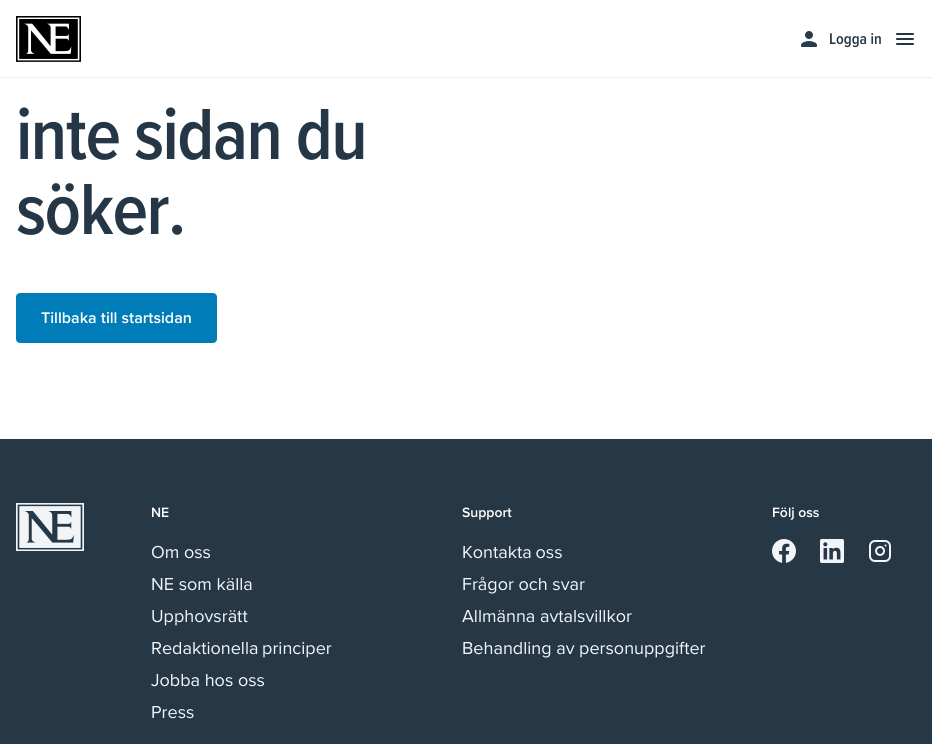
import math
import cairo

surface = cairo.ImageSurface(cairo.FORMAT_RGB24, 932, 744)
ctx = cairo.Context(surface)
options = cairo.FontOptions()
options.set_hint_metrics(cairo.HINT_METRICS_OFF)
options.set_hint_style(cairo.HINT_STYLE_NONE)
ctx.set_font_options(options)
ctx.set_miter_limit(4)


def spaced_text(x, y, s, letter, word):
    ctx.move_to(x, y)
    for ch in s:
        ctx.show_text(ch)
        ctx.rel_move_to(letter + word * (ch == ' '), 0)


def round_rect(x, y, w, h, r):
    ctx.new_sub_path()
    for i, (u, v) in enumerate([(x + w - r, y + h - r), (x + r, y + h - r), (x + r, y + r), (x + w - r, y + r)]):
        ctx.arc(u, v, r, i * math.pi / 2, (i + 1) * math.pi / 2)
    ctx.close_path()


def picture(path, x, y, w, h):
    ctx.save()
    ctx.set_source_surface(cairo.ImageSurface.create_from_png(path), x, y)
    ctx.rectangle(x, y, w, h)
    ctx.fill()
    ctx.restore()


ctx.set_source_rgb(1, 1, 1)
ctx.paint()
ctx.set_source_rgb(0.933, 0.937, 0.941)
ctx.rectangle(0, 77, 932, 1)
ctx.fill()
picture("img1.png", 16, 16, 65, 46)
picture("img2.png", 801, 31, 16, 16)
ctx.select_font_face("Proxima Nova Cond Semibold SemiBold")
ctx.set_font_size(16)
ctx.set_source_rgb(0.145, 0.216, 0.275)
ctx.move_to(829, 44)
ctx.show_text("Logga in")
picture("img3.png", 896, 33, 18, 12)
ctx.set_font_size(75)
spaced_text(16, 159, "inte sidan du", -1.5, 0)
spaced_text(16, 234, "söker.", -1.5, 0)
ctx.set_source_rgb(0, 0.49, 0.722)
round_rect(16.5, 293.5, 200, 49, 3.5)
ctx.fill_preserve()
ctx.set_line_width(1)
ctx.stroke()
ctx.select_font_face("Proxima Nova SemiBold")
ctx.set_font_size(16)
ctx.set_source_rgb(1, 1, 1)
ctx.move_to(41, 323)
ctx.show_text("Tillbaka till startsidan")
ctx.set_source_rgb(0.149, 0.216, 0.275)
ctx.rectangle(0, 439, 932, 305)
ctx.fill()
picture("img4.png", 16, 503, 68, 48)
ctx.set_font_size(14)
ctx.set_source_rgb(1, 1, 1)
ctx.move_to(151, 517)
ctx.show_text("NE")
ctx.select_font_face("Proxima Nova")
ctx.set_font_size(18)
ctx.set_source_rgb(0.949, 0.961, 0.973)
ctx.move_to(151, 558)
ctx.show_text("Om oss")
ctx.move_to(151, 590)
ctx.show_text("NE som källa")
ctx.move_to(151, 622)
ctx.show_text("Upphovsrätt")
spaced_text(151, 654, "Redaktionella principer", 0, -1)
ctx.move_to(151, 686)
ctx.show_text("Jobba hos oss")
ctx.move_to(151, 718)
ctx.show_text("Press")
ctx.select_font_face("Proxima Nova SemiBold")
ctx.set_font_size(14)
ctx.set_source_rgb(1, 1, 1)
ctx.move_to(462, 517)
ctx.show_text("Support")
ctx.select_font_face("Proxima Nova")
ctx.set_font_size(18)
ctx.set_source_rgb(0.949, 0.961, 0.973)
spaced_text(462, 558, "Kontakta oss", 0, -1)
ctx.move_to(462, 590)
ctx.show_text("Frågor och svar")
ctx.move_to(462, 622)
ctx.show_text("Allmänna avtalsvillkor")
ctx.move_to(462, 654)
ctx.show_text("Behandling av personuppgifter")
ctx.select_font_face("Proxima Nova SemiBold")
ctx.set_font_size(14)
ctx.set_source_rgb(1, 1, 1)
ctx.move_to(772, 517)
ctx.show_text("Följ oss")
picture("img5.png", 772, 539, 24, 24)
picture("img6.png", 820, 539, 24, 24)
picture("img7.png", 869, 540, 22, 22)
surface.write_to_png("page.png")
